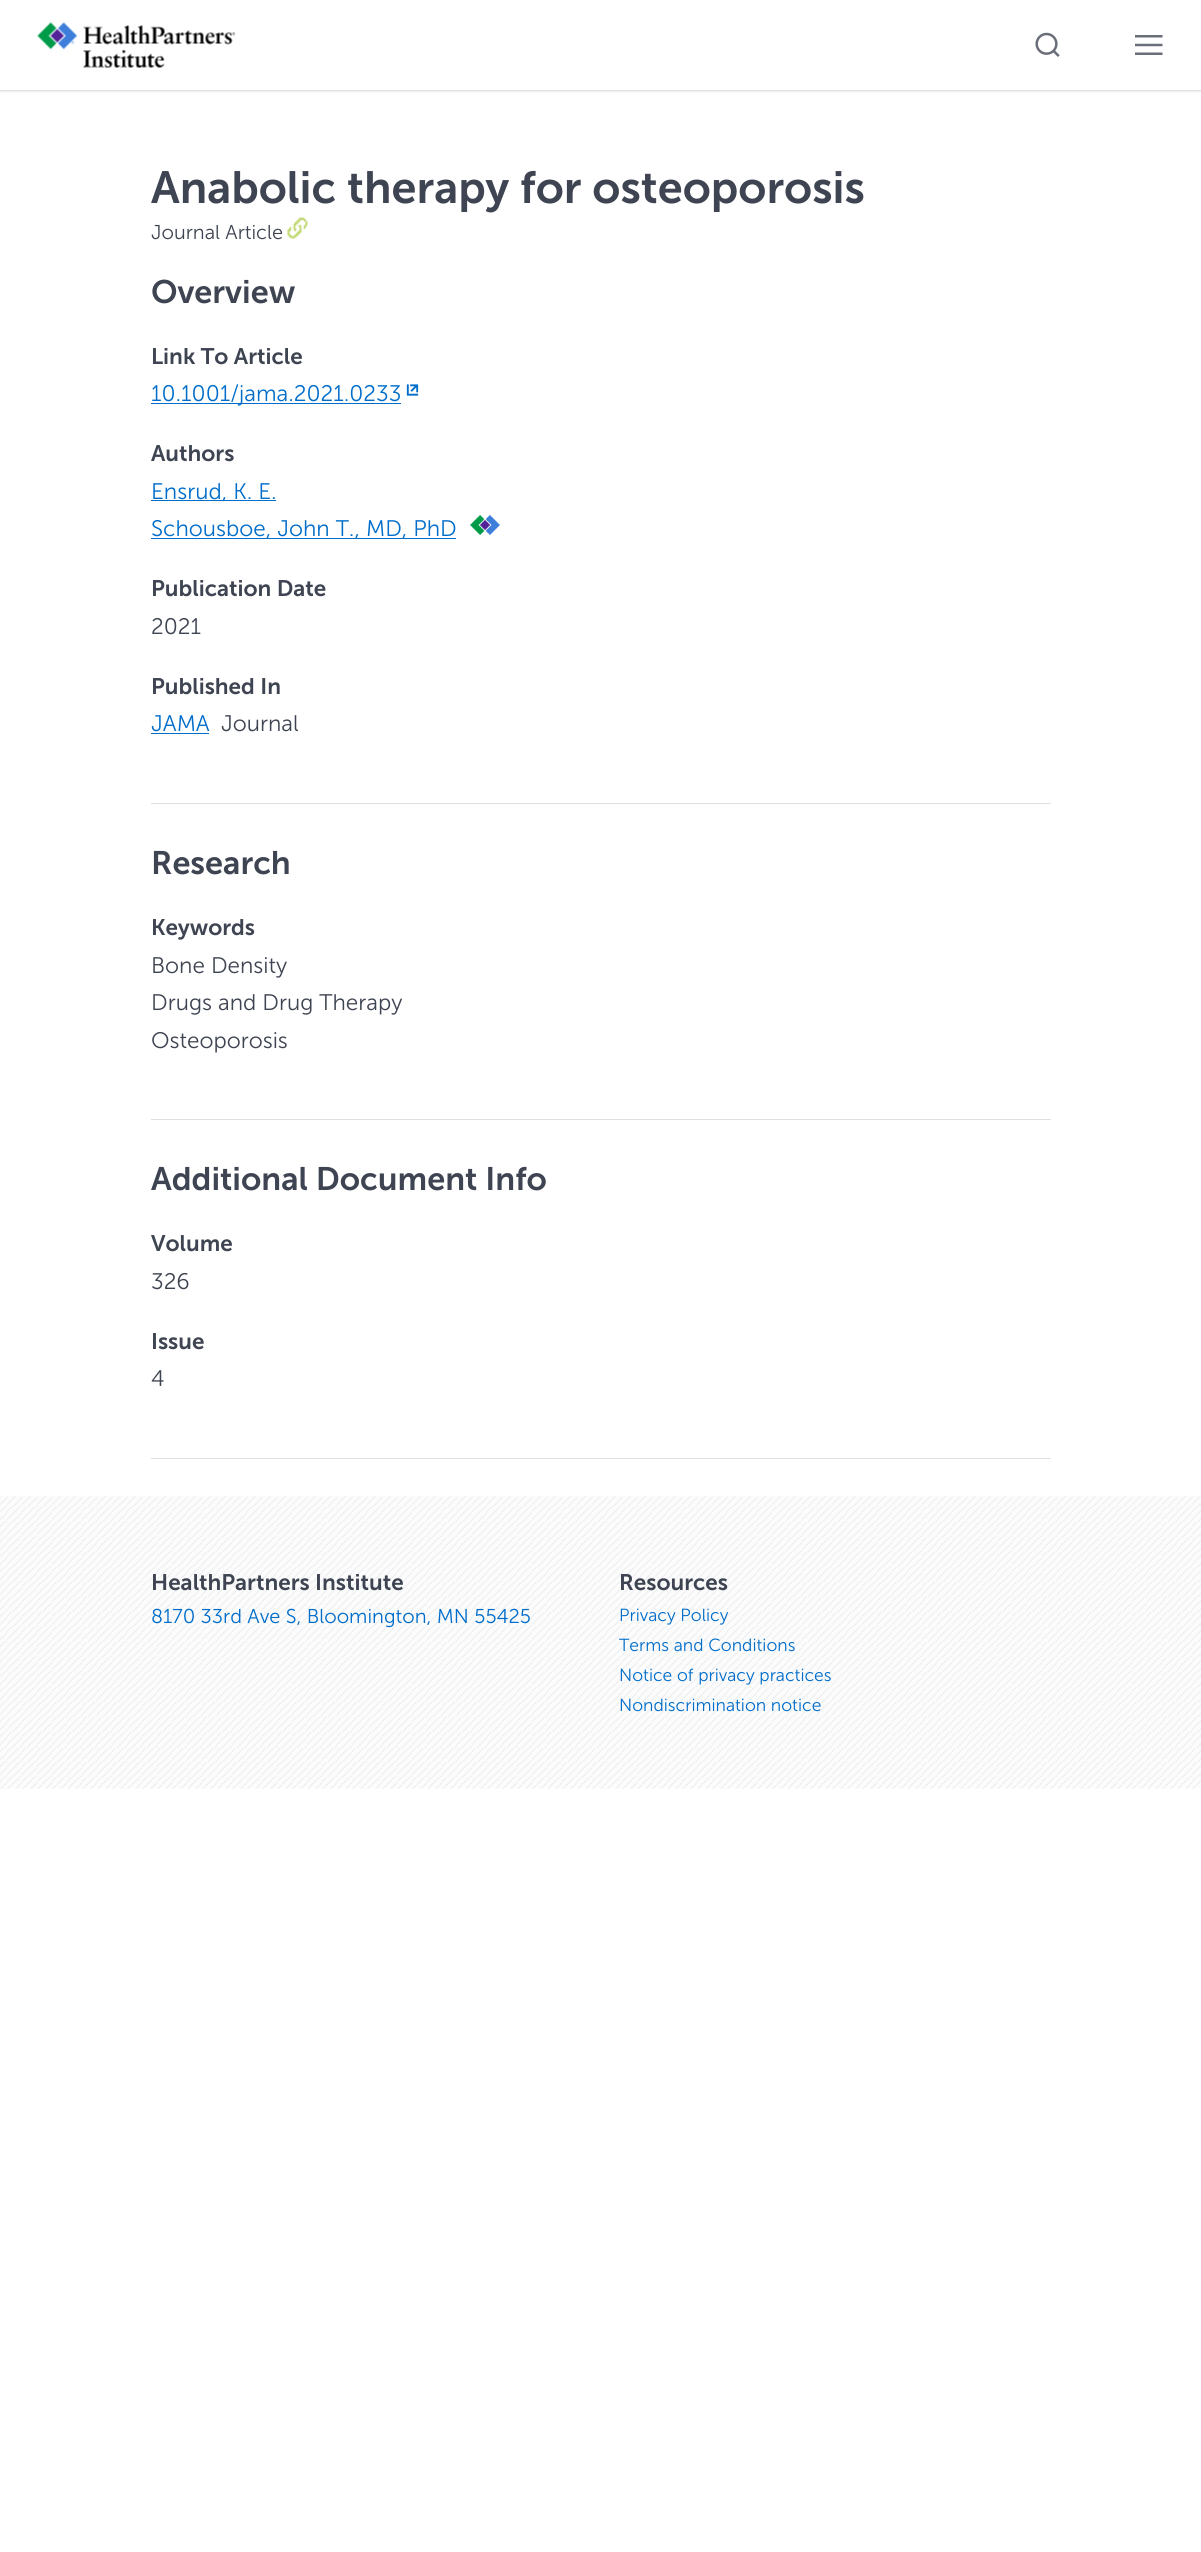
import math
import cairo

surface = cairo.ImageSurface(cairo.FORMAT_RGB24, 1201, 2552)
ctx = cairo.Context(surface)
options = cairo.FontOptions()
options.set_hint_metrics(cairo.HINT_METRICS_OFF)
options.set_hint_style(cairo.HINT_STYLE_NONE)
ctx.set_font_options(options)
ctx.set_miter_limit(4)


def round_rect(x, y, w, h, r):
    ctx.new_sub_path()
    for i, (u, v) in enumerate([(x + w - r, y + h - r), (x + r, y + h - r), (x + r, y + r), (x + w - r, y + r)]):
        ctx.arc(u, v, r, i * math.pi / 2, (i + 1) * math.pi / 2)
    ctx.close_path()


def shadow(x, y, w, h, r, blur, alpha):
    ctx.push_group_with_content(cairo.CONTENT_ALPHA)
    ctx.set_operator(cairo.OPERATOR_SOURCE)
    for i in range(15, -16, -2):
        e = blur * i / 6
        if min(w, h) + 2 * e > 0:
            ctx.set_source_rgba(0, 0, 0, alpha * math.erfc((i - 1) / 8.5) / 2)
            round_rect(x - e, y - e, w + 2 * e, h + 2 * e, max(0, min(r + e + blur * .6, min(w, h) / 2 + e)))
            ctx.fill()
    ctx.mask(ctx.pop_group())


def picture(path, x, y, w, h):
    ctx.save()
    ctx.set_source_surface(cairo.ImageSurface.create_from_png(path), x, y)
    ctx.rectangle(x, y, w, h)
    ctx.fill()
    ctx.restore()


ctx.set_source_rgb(1, 1, 1)
ctx.paint()
ctx.save()
ctx.rectangle(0, 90, 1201, 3)
ctx.clip()
ctx.set_source_rgb(0.659, 0.659, 0.659)
shadow(0, 1, 1201, 90, 0, 1, 0.5)
ctx.restore()
picture("img1.png", 37, 22, 199, 46)
picture("img2.png", 1035, 32, 25, 25)
picture("img3.png", 1135, 35, 28, 20)
ctx.select_font_face("Museo Sans SemiBold")
ctx.set_font_size(45)
ctx.set_source_rgb(0.243, 0.267, 0.318)
ctx.move_to(151, 203)
ctx.show_text("Anabolic therapy for osteoporosis")
ctx.select_font_face("Museo Sans Light")
ctx.set_font_size(20)
ctx.move_to(151, 239)
ctx.show_text("Journal Article")
picture("img4.png", 287, 217, 21, 22)
ctx.select_font_face("Museo Sans SemiBold")
ctx.set_font_size(32.5)
ctx.move_to(151, 303)
ctx.show_text("Overview")
ctx.set_font_size(22.5)
ctx.move_to(151, 364)
ctx.show_text("Link To Article")
ctx.set_source_rgb(0, 0.427, 0.792)
ctx.rectangle(151, 403, 250, 1)
ctx.fill()
ctx.select_font_face("Museo Sans Light")
ctx.move_to(151, 401)
ctx.show_text("10.1001/jama.2021.0233")
picture("img5.png", 406, 384, 13, 12)
ctx.select_font_face("Museo Sans SemiBold")
ctx.set_source_rgb(0.243, 0.267, 0.318)
ctx.move_to(151, 461)
ctx.show_text("Authors")
ctx.set_source_rgb(0, 0.427, 0.792)
ctx.rectangle(151, 500, 125, 1)
ctx.fill()
ctx.select_font_face("Museo Sans Light")
ctx.move_to(151, 499)
ctx.show_text("Ensrud, K. E.")
ctx.rectangle(151, 538, 305, 1)
ctx.fill()
ctx.move_to(151, 536)
ctx.show_text("Schousboe, John T., MD, PhD")
picture("img6.png", 470, 515, 30, 20)
ctx.select_font_face("Museo Sans SemiBold")
ctx.set_source_rgb(0.243, 0.267, 0.318)
ctx.move_to(151, 596)
ctx.show_text("Publication Date")
ctx.select_font_face("Museo Sans Light")
ctx.move_to(151, 634)
ctx.show_text("2021")
ctx.select_font_face("Museo Sans SemiBold")
ctx.move_to(151, 694)
ctx.show_text("Published In")
ctx.select_font_face("Museo Sans Light")
ctx.set_source_rgb(0, 0.427, 0.792)
ctx.move_to(151, 731)
ctx.show_text("JAMA")
ctx.rectangle(151, 733, 58, 1)
ctx.fill()
ctx.set_source_rgb(0.243, 0.267, 0.318)
ctx.move_to(221, 731)
ctx.show_text("Journal")
ctx.set_source_rgb(0.867, 0.875, 0.898)
ctx.rectangle(151, 803, 900, 1)
ctx.fill()
ctx.select_font_face("Museo Sans SemiBold")
ctx.set_font_size(32.5)
ctx.set_source_rgb(0.243, 0.267, 0.318)
ctx.move_to(151, 874)
ctx.show_text("Research")
ctx.set_font_size(22.5)
ctx.move_to(151, 935)
ctx.show_text("Keywords")
ctx.select_font_face("Museo Sans Light")
ctx.move_to(151, 973)
ctx.show_text("Bone Density")
ctx.move_to(151, 1010)
ctx.show_text("Drugs and Drug Therapy")
ctx.move_to(151, 1048)
ctx.show_text("Osteoporosis")
ctx.set_source_rgb(0.867, 0.875, 0.898)
ctx.rectangle(151, 1119, 900, 1)
ctx.fill()
ctx.select_font_face("Museo Sans SemiBold")
ctx.set_font_size(32.5)
ctx.set_source_rgb(0.243, 0.267, 0.318)
ctx.move_to(151, 1190)
ctx.show_text("Additional Document Info")
ctx.set_font_size(22.5)
ctx.move_to(151, 1251)
ctx.show_text("Volume")
ctx.select_font_face("Museo Sans Light")
ctx.move_to(151, 1289)
ctx.show_text("326")
ctx.select_font_face("Museo Sans SemiBold")
ctx.move_to(151, 1349)
ctx.show_text("Issue")
ctx.select_font_face("Museo Sans Light")
ctx.move_to(151, 1386)
ctx.show_text("4")
ctx.set_source_rgb(0.867, 0.875, 0.898)
ctx.rectangle(151, 1458, 900, 1)
ctx.fill()
picture("img7.png", 0, 1496, 1201, 293)
ctx.select_font_face("Museo Sans SemiBold")
ctx.set_source_rgb(0.243, 0.267, 0.318)
ctx.move_to(151, 1590)
ctx.show_text("HealthPartners Institute")
ctx.select_font_face("Museo Sans Light")
ctx.set_font_size(20)
ctx.set_source_rgb(0, 0.427, 0.792)
ctx.move_to(151, 1623)
ctx.show_text("8170 33rd Ave S, Bloomington, MN 55425")
ctx.select_font_face("Museo Sans SemiBold")
ctx.set_font_size(22.5)
ctx.set_source_rgb(0.243, 0.267, 0.318)
ctx.move_to(619, 1590)
ctx.show_text("Resources")
ctx.select_font_face("Museo Sans Light")
ctx.set_font_size(17.5)
ctx.set_source_rgb(0, 0.427, 0.792)
ctx.move_to(619, 1621)
ctx.show_text("Privacy Policy")
ctx.move_to(619, 1651)
ctx.show_text("Terms and Conditions")
ctx.move_to(619, 1681)
ctx.show_text("Notice of privacy practices")
ctx.move_to(619, 1711)
ctx.show_text("Nondiscrimination notice")
surface.write_to_png("page.png")
